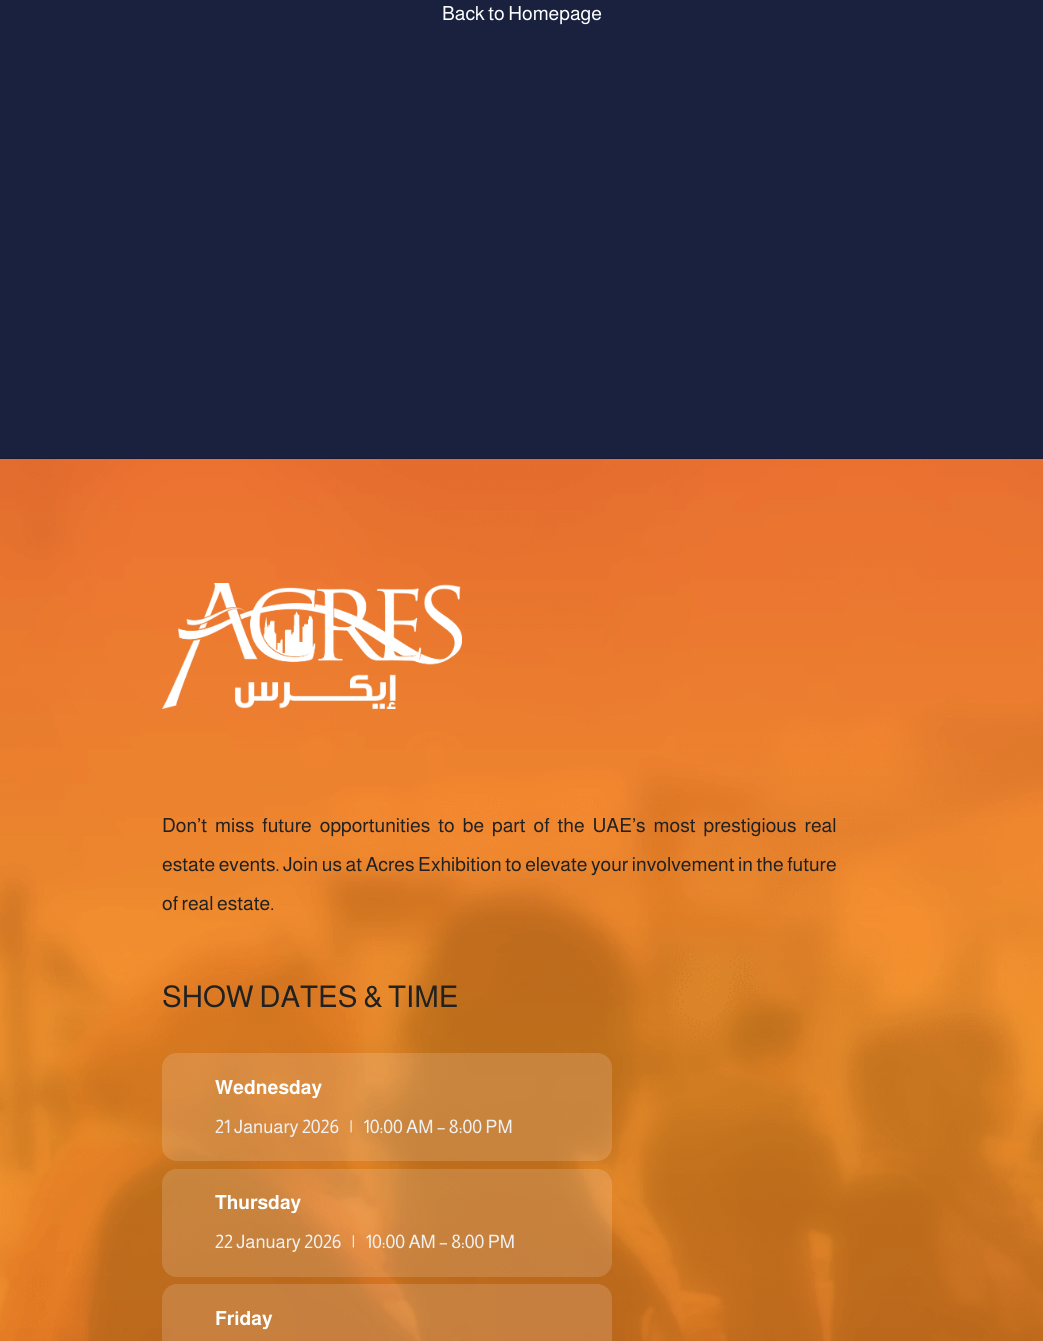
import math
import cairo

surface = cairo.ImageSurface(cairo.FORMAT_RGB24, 1043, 1341)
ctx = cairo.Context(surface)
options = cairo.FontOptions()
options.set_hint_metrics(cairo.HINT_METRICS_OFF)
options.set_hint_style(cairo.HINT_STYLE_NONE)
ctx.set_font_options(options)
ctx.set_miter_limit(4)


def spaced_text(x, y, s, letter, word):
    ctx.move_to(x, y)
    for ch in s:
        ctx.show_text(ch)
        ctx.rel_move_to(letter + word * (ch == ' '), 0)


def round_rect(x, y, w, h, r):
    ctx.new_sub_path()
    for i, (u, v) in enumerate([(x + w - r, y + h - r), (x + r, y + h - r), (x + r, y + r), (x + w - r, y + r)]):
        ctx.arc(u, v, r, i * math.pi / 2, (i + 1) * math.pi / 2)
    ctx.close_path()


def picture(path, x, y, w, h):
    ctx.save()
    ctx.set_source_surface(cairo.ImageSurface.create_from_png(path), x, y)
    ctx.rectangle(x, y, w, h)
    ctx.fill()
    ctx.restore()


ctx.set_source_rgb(1, 1, 1)
ctx.paint()
picture("img1.png", 0, 458, 1043, 883)
ctx.set_source_rgba(0, 0.035, 0.161, 0.9)
ctx.rectangle(0, 0, 1043, 459)
ctx.fill()
ctx.select_font_face("Almarai")
ctx.set_font_size(19.5)
ctx.set_source_rgb(1, 1, 1)
ctx.move_to(442, 20)
ctx.show_text("Back to Homepage")
picture("img2.png", 162, 583, 300, 126)
ctx.set_source_rgb(0.129, 0.129, 0.129)
spaced_text(162, 832, "Don’t miss future opportunities to be part of the UAE’s most prestigious real", 0, 4.4)
ctx.move_to(162, 871)
ctx.show_text("estate events. Join us at Acres Exhibition to elevate your involvement in the future")
ctx.move_to(162, 910)
ctx.show_text("of real estate.")
ctx.set_font_size(30)
ctx.move_to(162, 1007)
ctx.show_text("SHOW DATES & TIME")
ctx.set_source_rgba(1, 1, 1, 0.15)
round_rect(162, 1053, 450, 108, 15)
ctx.fill()
ctx.select_font_face("Almarai", cairo.FONT_SLANT_NORMAL, cairo.FONT_WEIGHT_BOLD)
ctx.set_font_size(19.5)
ctx.set_source_rgb(1, 1, 1)
ctx.move_to(215, 1094)
ctx.show_text("Wednesday")
ctx.select_font_face("Almarai")
ctx.set_font_size(18.5)
ctx.set_source_rgb(0.945, 0.945, 0.945)
ctx.move_to(215, 1133)
ctx.show_text("21 January 2026   |   10:00 AM – 8:00 PM")
ctx.set_source_rgba(1, 1, 1, 0.15)
round_rect(162, 1169, 450, 108, 15)
ctx.fill()
ctx.select_font_face("Almarai", cairo.FONT_SLANT_NORMAL, cairo.FONT_WEIGHT_BOLD)
ctx.set_font_size(19.5)
ctx.set_source_rgb(1, 1, 1)
ctx.move_to(215, 1209)
ctx.show_text("Thursday")
ctx.select_font_face("Almarai")
ctx.set_font_size(18.5)
ctx.set_source_rgb(0.945, 0.945, 0.945)
ctx.move_to(215, 1248)
ctx.show_text("22 January 2026   |   10:00 AM – 8:00 PM")
ctx.set_source_rgba(1, 1, 1, 0.15)
round_rect(162, 1284, 450, 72, 15)
ctx.fill()
ctx.select_font_face("Almarai", cairo.FONT_SLANT_NORMAL, cairo.FONT_WEIGHT_BOLD)
ctx.set_font_size(19.5)
ctx.set_source_rgb(1, 1, 1)
ctx.move_to(215, 1325)
ctx.show_text("Friday")
surface.write_to_png("page.png")
